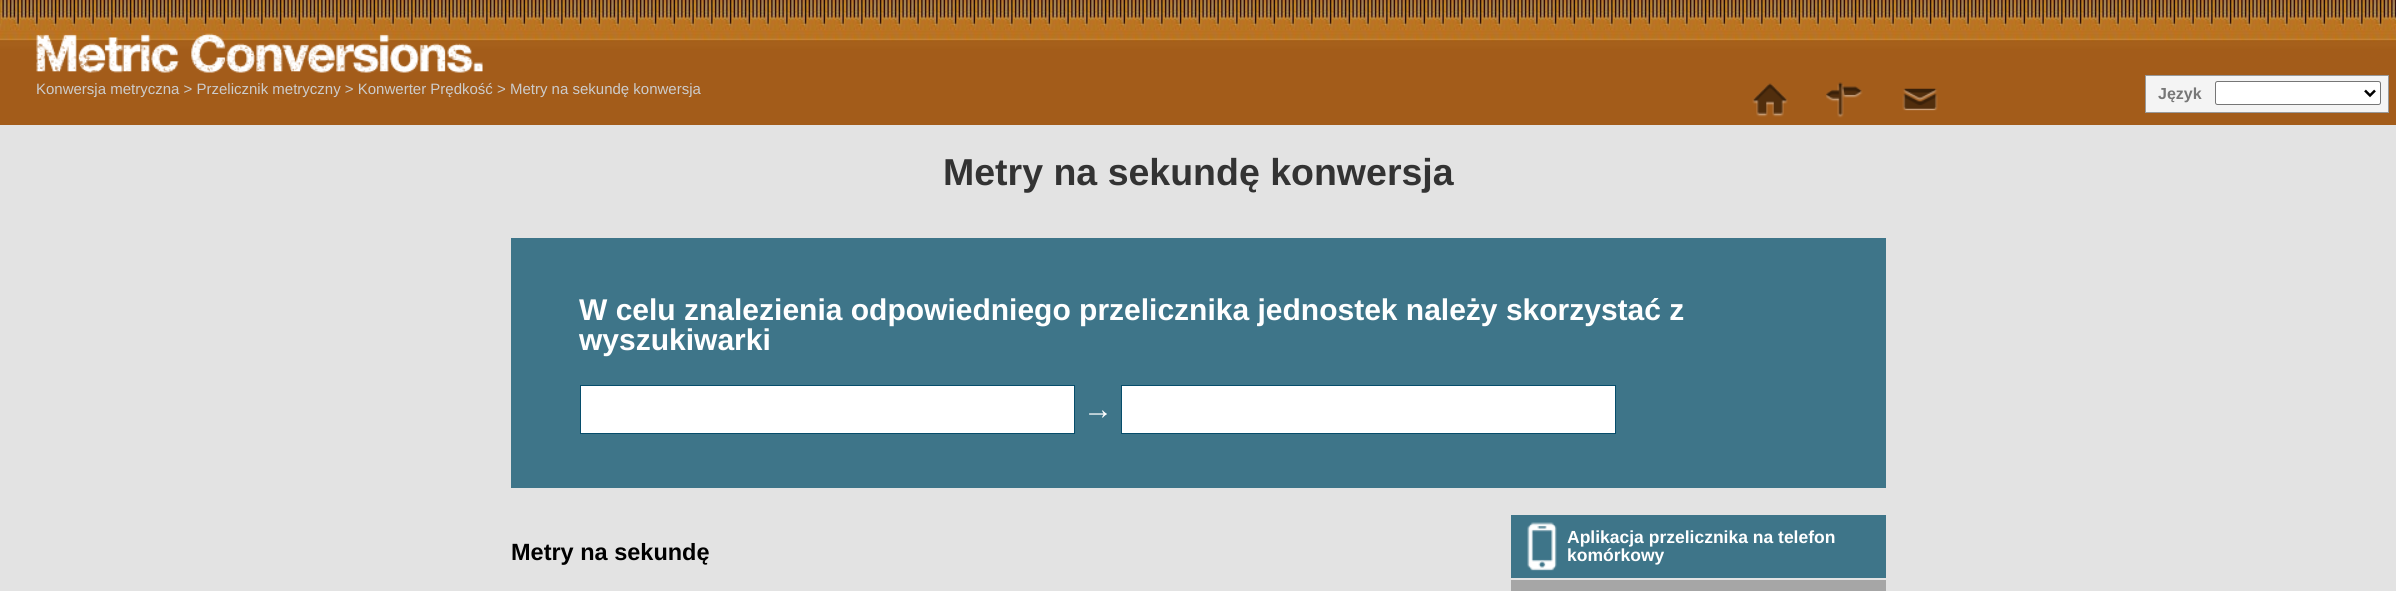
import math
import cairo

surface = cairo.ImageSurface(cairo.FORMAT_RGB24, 2396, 591)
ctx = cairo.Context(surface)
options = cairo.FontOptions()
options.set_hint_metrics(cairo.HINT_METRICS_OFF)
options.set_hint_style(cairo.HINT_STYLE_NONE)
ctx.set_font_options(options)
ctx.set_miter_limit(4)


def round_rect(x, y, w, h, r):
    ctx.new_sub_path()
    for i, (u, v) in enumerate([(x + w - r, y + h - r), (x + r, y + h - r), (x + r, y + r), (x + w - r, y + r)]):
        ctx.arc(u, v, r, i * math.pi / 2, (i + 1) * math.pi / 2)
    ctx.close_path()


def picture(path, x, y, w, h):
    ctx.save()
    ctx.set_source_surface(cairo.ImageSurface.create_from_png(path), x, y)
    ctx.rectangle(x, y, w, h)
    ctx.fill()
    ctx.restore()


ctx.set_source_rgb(0.89, 0.89, 0.89)
ctx.paint()
picture("img1.png", 0, 0, 2396, 125)
picture("img2.png", 36, 33, 447, 40)
ctx.select_font_face("Liberation Sans")
ctx.set_font_size(15)
ctx.set_source_rgb(0.8, 0.8, 0.8)
ctx.move_to(36, 94)
ctx.show_text("Konwersja metryczna > Przelicznik metryczny > Konwerter Prędkość > Metry na sekundę konwersja")
picture("img3.png", 1752, 83, 36, 34)
picture("img4.png", 1826, 82, 37, 36)
picture("img5.png", 1902, 88, 36, 23)
ctx.set_source_rgb(0.957, 0.957, 0.957)
ctx.rectangle(2145.5, 75.5, 243, 37)
ctx.fill_preserve()
ctx.set_source_rgb(0.6, 0.6, 0.6)
ctx.set_line_width(1)
ctx.stroke()
ctx.select_font_face("Liberation Sans", cairo.FONT_SLANT_NORMAL, cairo.FONT_WEIGHT_BOLD)
ctx.set_font_size(16)
ctx.set_source_rgb(0.467, 0.467, 0.467)
ctx.move_to(2158, 99)
ctx.show_text("Język")
ctx.set_source_rgb(1, 1, 1)
round_rect(2215.5, 81.5, 165, 23, 2)
ctx.fill_preserve()
ctx.set_source_rgb(0.463, 0.463, 0.463)
ctx.stroke()
ctx.new_path()
ctx.move_to(2365, 90.5)
ctx.line_to(2370, 95.5)
ctx.line_to(2375, 90.5)
ctx.set_source_rgb(0, 0, 0)
ctx.set_line_width(2.5)
ctx.stroke()
ctx.set_font_size(37.5)
ctx.set_source_rgb(0.2, 0.2, 0.2)
ctx.move_to(943, 185)
ctx.show_text("Metry na sekundę konwersja")
ctx.set_source_rgb(0.243, 0.459, 0.537)
ctx.rectangle(511, 238, 1375, 250)
ctx.fill()
ctx.set_font_size(30)
ctx.set_source_rgb(1, 1, 1)
ctx.move_to(579, 320)
ctx.show_text("W celu znalezienia odpowiedniego przelicznika jednostek należy skorzystać z")
ctx.move_to(579, 350)
ctx.show_text("wyszukiwarki")
ctx.rectangle(580.5, 385.5, 494, 48)
ctx.fill_preserve()
ctx.set_source_rgb(0.024, 0.302, 0.42)
ctx.set_line_width(1)
ctx.stroke()
ctx.set_source_rgb(1, 1, 1)
ctx.move_to(1083, 419)
ctx.show_text("→")
ctx.rectangle(1121.5, 385.5, 494, 48)
ctx.fill_preserve()
ctx.set_source_rgb(0.024, 0.302, 0.42)
ctx.stroke()
ctx.set_font_size(23.5)
ctx.set_source_rgb(0, 0, 0)
ctx.move_to(511, 560)
ctx.show_text("Metry na sekundę")
ctx.set_source_rgb(0.243, 0.459, 0.537)
ctx.rectangle(1511, 515, 375, 63)
ctx.fill()
picture("img6.png", 1527, 522, 30, 49)
ctx.set_font_size(17.5)
ctx.set_source_rgb(1, 1, 1)
ctx.move_to(1567, 543)
ctx.show_text("Aplikacja przelicznika na telefon")
ctx.move_to(1567, 561)
ctx.show_text("komórkowy")
ctx.set_source_rgb(0.651, 0.651, 0.651)
ctx.rectangle(1511, 580, 375, 11)
ctx.fill()
surface.write_to_png("page.png")
